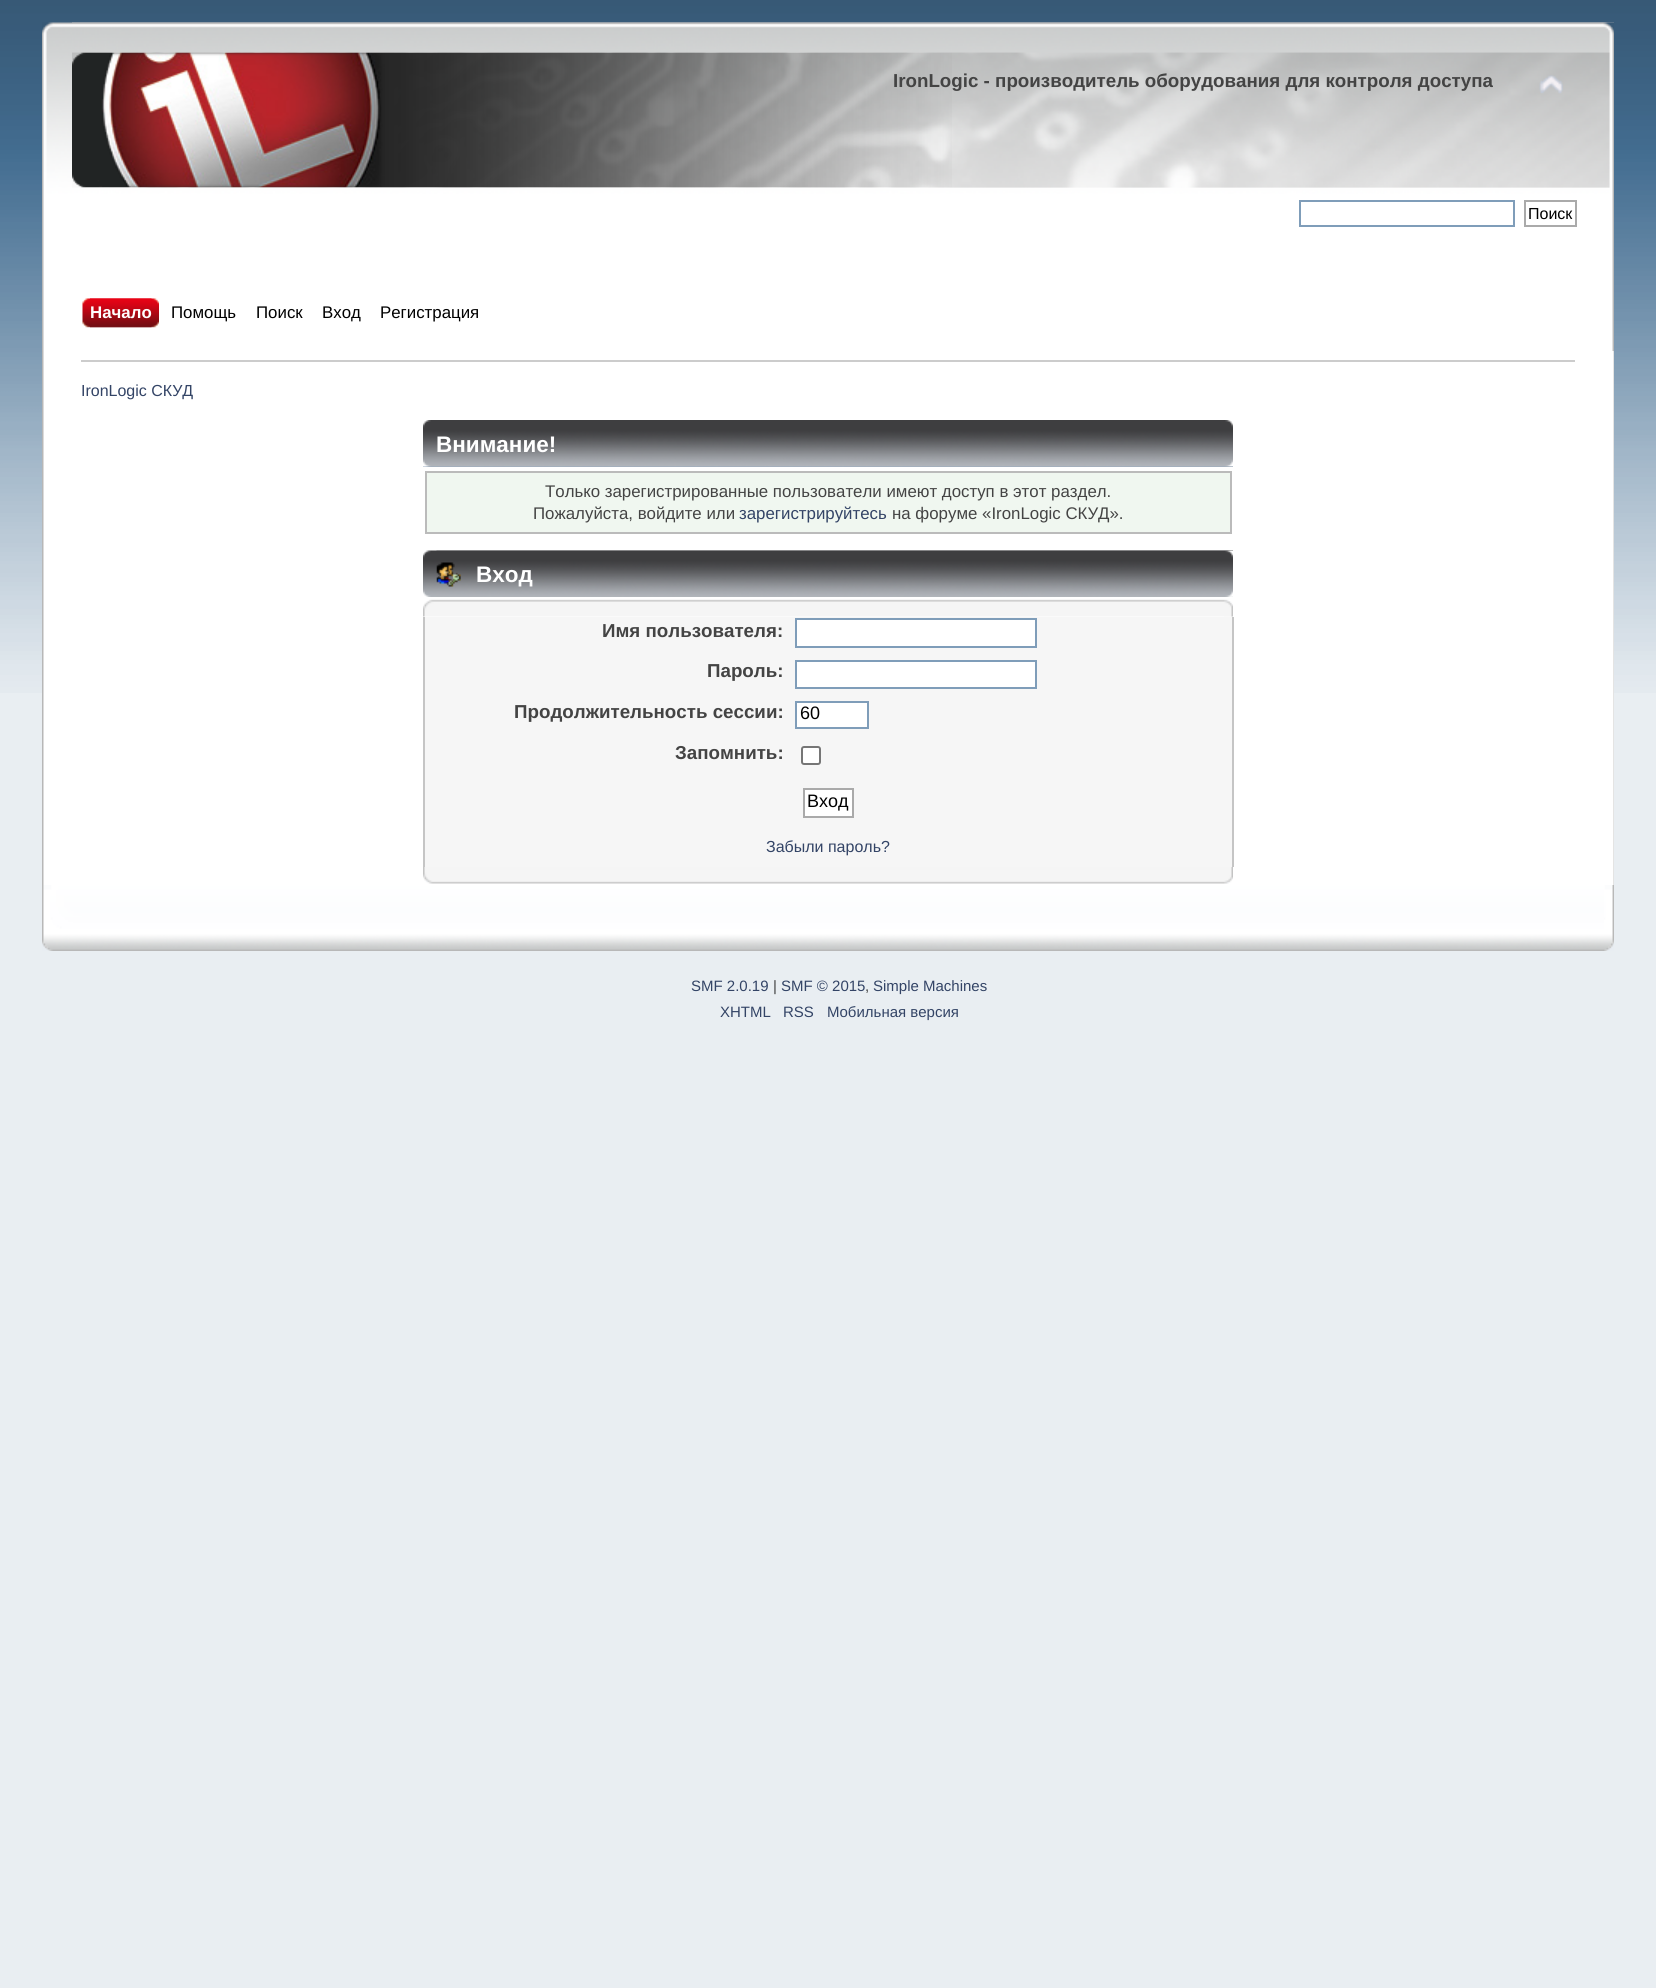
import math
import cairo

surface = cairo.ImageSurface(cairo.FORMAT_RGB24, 1656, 1988)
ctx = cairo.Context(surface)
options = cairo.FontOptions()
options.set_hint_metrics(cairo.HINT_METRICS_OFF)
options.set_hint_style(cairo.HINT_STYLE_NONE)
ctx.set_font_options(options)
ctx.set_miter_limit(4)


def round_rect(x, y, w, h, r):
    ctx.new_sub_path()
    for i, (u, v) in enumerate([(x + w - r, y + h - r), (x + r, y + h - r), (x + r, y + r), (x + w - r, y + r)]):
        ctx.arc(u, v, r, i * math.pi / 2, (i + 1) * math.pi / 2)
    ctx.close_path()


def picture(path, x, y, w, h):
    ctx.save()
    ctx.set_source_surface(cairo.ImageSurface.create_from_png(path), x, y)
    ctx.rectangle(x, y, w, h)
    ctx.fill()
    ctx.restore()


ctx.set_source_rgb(0.914, 0.933, 0.949)
ctx.paint()
picture("img1.png", 0, 0, 1656, 693)
picture("img2.png", 42, 22, 1572, 329)
picture("img3.png", 72, 22, 1542, 329)
picture("img4.png", 72, 52, 880, 136)
ctx.select_font_face("Liberation Sans", cairo.FONT_SLANT_NORMAL, cairo.FONT_WEIGHT_BOLD)
ctx.set_font_size(18.75)
ctx.set_source_rgb(0.267, 0.267, 0.267)
ctx.move_to(893, 87)
ctx.show_text("IronLogic - производитель оборудования для контроля доступа")
picture("img5.png", 1539, 75, 24, 19)
ctx.rectangle(1300, 201, 214, 25)
ctx.set_source_rgb(0.498, 0.616, 0.725)
ctx.stroke()
ctx.rectangle(1525, 201, 51, 25)
ctx.set_source_rgb(0.667, 0.667, 0.667)
ctx.stroke()
ctx.select_font_face("Liberation Sans")
ctx.set_font_size(16)
ctx.set_source_rgb(0, 0, 0)
ctx.move_to(1528, 219)
ctx.show_text("Поиск")
picture("img6.png", 90, 298, 69, 30)
picture("img7.png", 82, 298, 70, 30)
ctx.select_font_face("Liberation Sans", cairo.FONT_SLANT_NORMAL, cairo.FONT_WEIGHT_BOLD)
ctx.set_font_size(16.85)
ctx.set_source_rgb(1, 1, 1)
ctx.move_to(90, 318)
ctx.show_text("Начало")
ctx.select_font_face("Liberation Sans")
ctx.set_source_rgb(0, 0, 0)
ctx.move_to(171, 318)
ctx.show_text("Помощь")
ctx.move_to(256, 318)
ctx.show_text("Поиск")
ctx.move_to(322, 318)
ctx.show_text("Вход")
ctx.move_to(380, 318)
ctx.show_text("Регистрация")
ctx.set_source_rgb(1, 1, 1)
ctx.rectangle(44, 351, 1569, 534)
ctx.fill()
picture("img8.png", 42, 351, 2, 534)
ctx.set_source_rgb(0.894, 0.894, 0.894)
ctx.rectangle(1613, 351, 1, 534)
ctx.fill()
ctx.set_source_rgb(0.8, 0.8, 0.8)
ctx.rectangle(81, 360, 1494, 2)
ctx.fill()
ctx.set_font_size(16)
ctx.set_source_rgb(0.2, 0.267, 0.4)
ctx.move_to(81, 396)
ctx.show_text("IronLogic СКУД")
ctx.set_source_rgb(0.6, 0.671, 0.749)
ctx.rectangle(423, 466, 810, 1)
ctx.fill()
picture("img9.png", 423, 420, 810, 47)
picture("img10.png", 1225, 420, 8, 47)
ctx.select_font_face("Liberation Sans", cairo.FONT_SLANT_NORMAL, cairo.FONT_WEIGHT_BOLD)
ctx.set_font_size(22.5)
ctx.set_source_rgb(1, 1, 1)
ctx.move_to(436, 452)
ctx.show_text("Внимание!")
ctx.set_source_rgb(0.941, 0.965, 0.941)
ctx.rectangle(426, 472, 805, 61)
ctx.fill_preserve()
ctx.set_source_rgb(0.733, 0.733, 0.733)
ctx.stroke()
ctx.select_font_face("Liberation Sans")
ctx.set_font_size(16.85)
ctx.set_source_rgb(0.267, 0.267, 0.267)
ctx.move_to(545, 497)
ctx.show_text("Только зарегистрированные пользователи имеют доступ в этот раздел.")
ctx.move_to(533, 519)
ctx.show_text("Пожалуйста, войдите или")
ctx.set_source_rgb(0.2, 0.267, 0.4)
ctx.move_to(739, 519)
ctx.show_text("зарегистрируйтесь")
ctx.set_source_rgb(0.267, 0.267, 0.267)
ctx.move_to(892, 519)
ctx.show_text("на форуме «IronLogic СКУД».")
picture("img11.png", 423, 550, 810, 47)
picture("img12.png", 436, 550, 797, 47)
picture("img13.png", 436, 562, 25, 25)
ctx.select_font_face("Liberation Sans", cairo.FONT_SLANT_NORMAL, cairo.FONT_WEIGHT_BOLD)
ctx.set_font_size(22.5)
ctx.set_source_rgb(1, 1, 1)
ctx.move_to(476, 582)
ctx.show_text("Вход")
picture("img14.png", 423, 599, 810, 18)
picture("img15.png", 1224, 599, 9, 18)
ctx.set_source_rgb(0.961, 0.961, 0.961)
ctx.rectangle(425, 617, 807, 250)
ctx.fill()
ctx.set_source_rgb(0.773, 0.773, 0.773)
ctx.rectangle(1232, 617, 2, 250)
ctx.fill()
ctx.rectangle(423, 617, 2, 250)
ctx.fill()
ctx.set_font_size(18.75)
ctx.set_source_rgb(0.267, 0.267, 0.267)
ctx.move_to(602, 637)
ctx.show_text("Имя пользователя:")
ctx.set_source_rgb(1, 1, 1)
ctx.rectangle(796, 619, 240, 28)
ctx.fill_preserve()
ctx.set_source_rgb(0.498, 0.616, 0.725)
ctx.stroke()
ctx.set_source_rgb(0.267, 0.267, 0.267)
ctx.move_to(707, 677)
ctx.show_text("Пароль:")
ctx.set_source_rgb(1, 1, 1)
ctx.rectangle(796, 661, 240, 27)
ctx.fill_preserve()
ctx.set_source_rgb(0.498, 0.616, 0.725)
ctx.stroke()
ctx.set_source_rgb(0.267, 0.267, 0.267)
ctx.move_to(514, 718)
ctx.show_text("Продолжительность сессии:")
ctx.set_source_rgb(1, 1, 1)
ctx.rectangle(796, 702, 72, 26)
ctx.fill_preserve()
ctx.set_source_rgb(0.498, 0.616, 0.725)
ctx.stroke()
ctx.select_font_face("Liberation Sans")
ctx.set_font_size(18)
ctx.set_source_rgb(0, 0, 0)
ctx.move_to(800, 719)
ctx.show_text("60")
ctx.select_font_face("Liberation Sans", cairo.FONT_SLANT_NORMAL, cairo.FONT_WEIGHT_BOLD)
ctx.set_font_size(18.75)
ctx.set_source_rgb(0.267, 0.267, 0.267)
ctx.move_to(675, 759)
ctx.show_text("Запомнить:")
ctx.set_source_rgb(1, 1, 1)
round_rect(802, 747, 18, 17, 2)
ctx.fill_preserve()
ctx.set_source_rgb(0.463, 0.463, 0.463)
ctx.stroke()
ctx.set_source_rgb(1, 1, 1)
ctx.rectangle(804, 789, 49, 28)
ctx.fill_preserve()
ctx.set_source_rgb(0.667, 0.667, 0.667)
ctx.stroke()
ctx.select_font_face("Liberation Sans")
ctx.set_font_size(18)
ctx.set_source_rgb(0, 0, 0)
ctx.move_to(807, 807)
ctx.show_text("Вход")
ctx.set_font_size(16)
ctx.set_source_rgb(0.2, 0.267, 0.4)
ctx.move_to(766, 852)
ctx.show_text("Забыли пароль?")
picture("img16.png", 423, 867, 801, 17)
picture("img17.png", 1224, 867, 9, 17)
picture("img18.png", 42, 885, 1562, 66)
picture("img19.png", 1604, 885, 10, 66)
ctx.set_font_size(15)
ctx.move_to(691, 991)
ctx.show_text("SMF 2.0.19")
ctx.set_source_rgb(0.267, 0.267, 0.267)
ctx.move_to(773, 991)
ctx.show_text("|")
ctx.set_source_rgb(0.2, 0.267, 0.4)
ctx.move_to(781, 991)
ctx.show_text("SMF © 2015")
ctx.set_source_rgb(0.267, 0.267, 0.267)
ctx.move_to(865, 991)
ctx.show_text(",")
ctx.set_source_rgb(0.2, 0.267, 0.4)
ctx.move_to(873, 991)
ctx.show_text("Simple Machines")
ctx.move_to(720, 1017)
ctx.show_text("XHTML")
ctx.move_to(783, 1017)
ctx.show_text("RSS")
ctx.move_to(827, 1017)
ctx.show_text("Мобильная версия")
surface.write_to_png("page.png")
